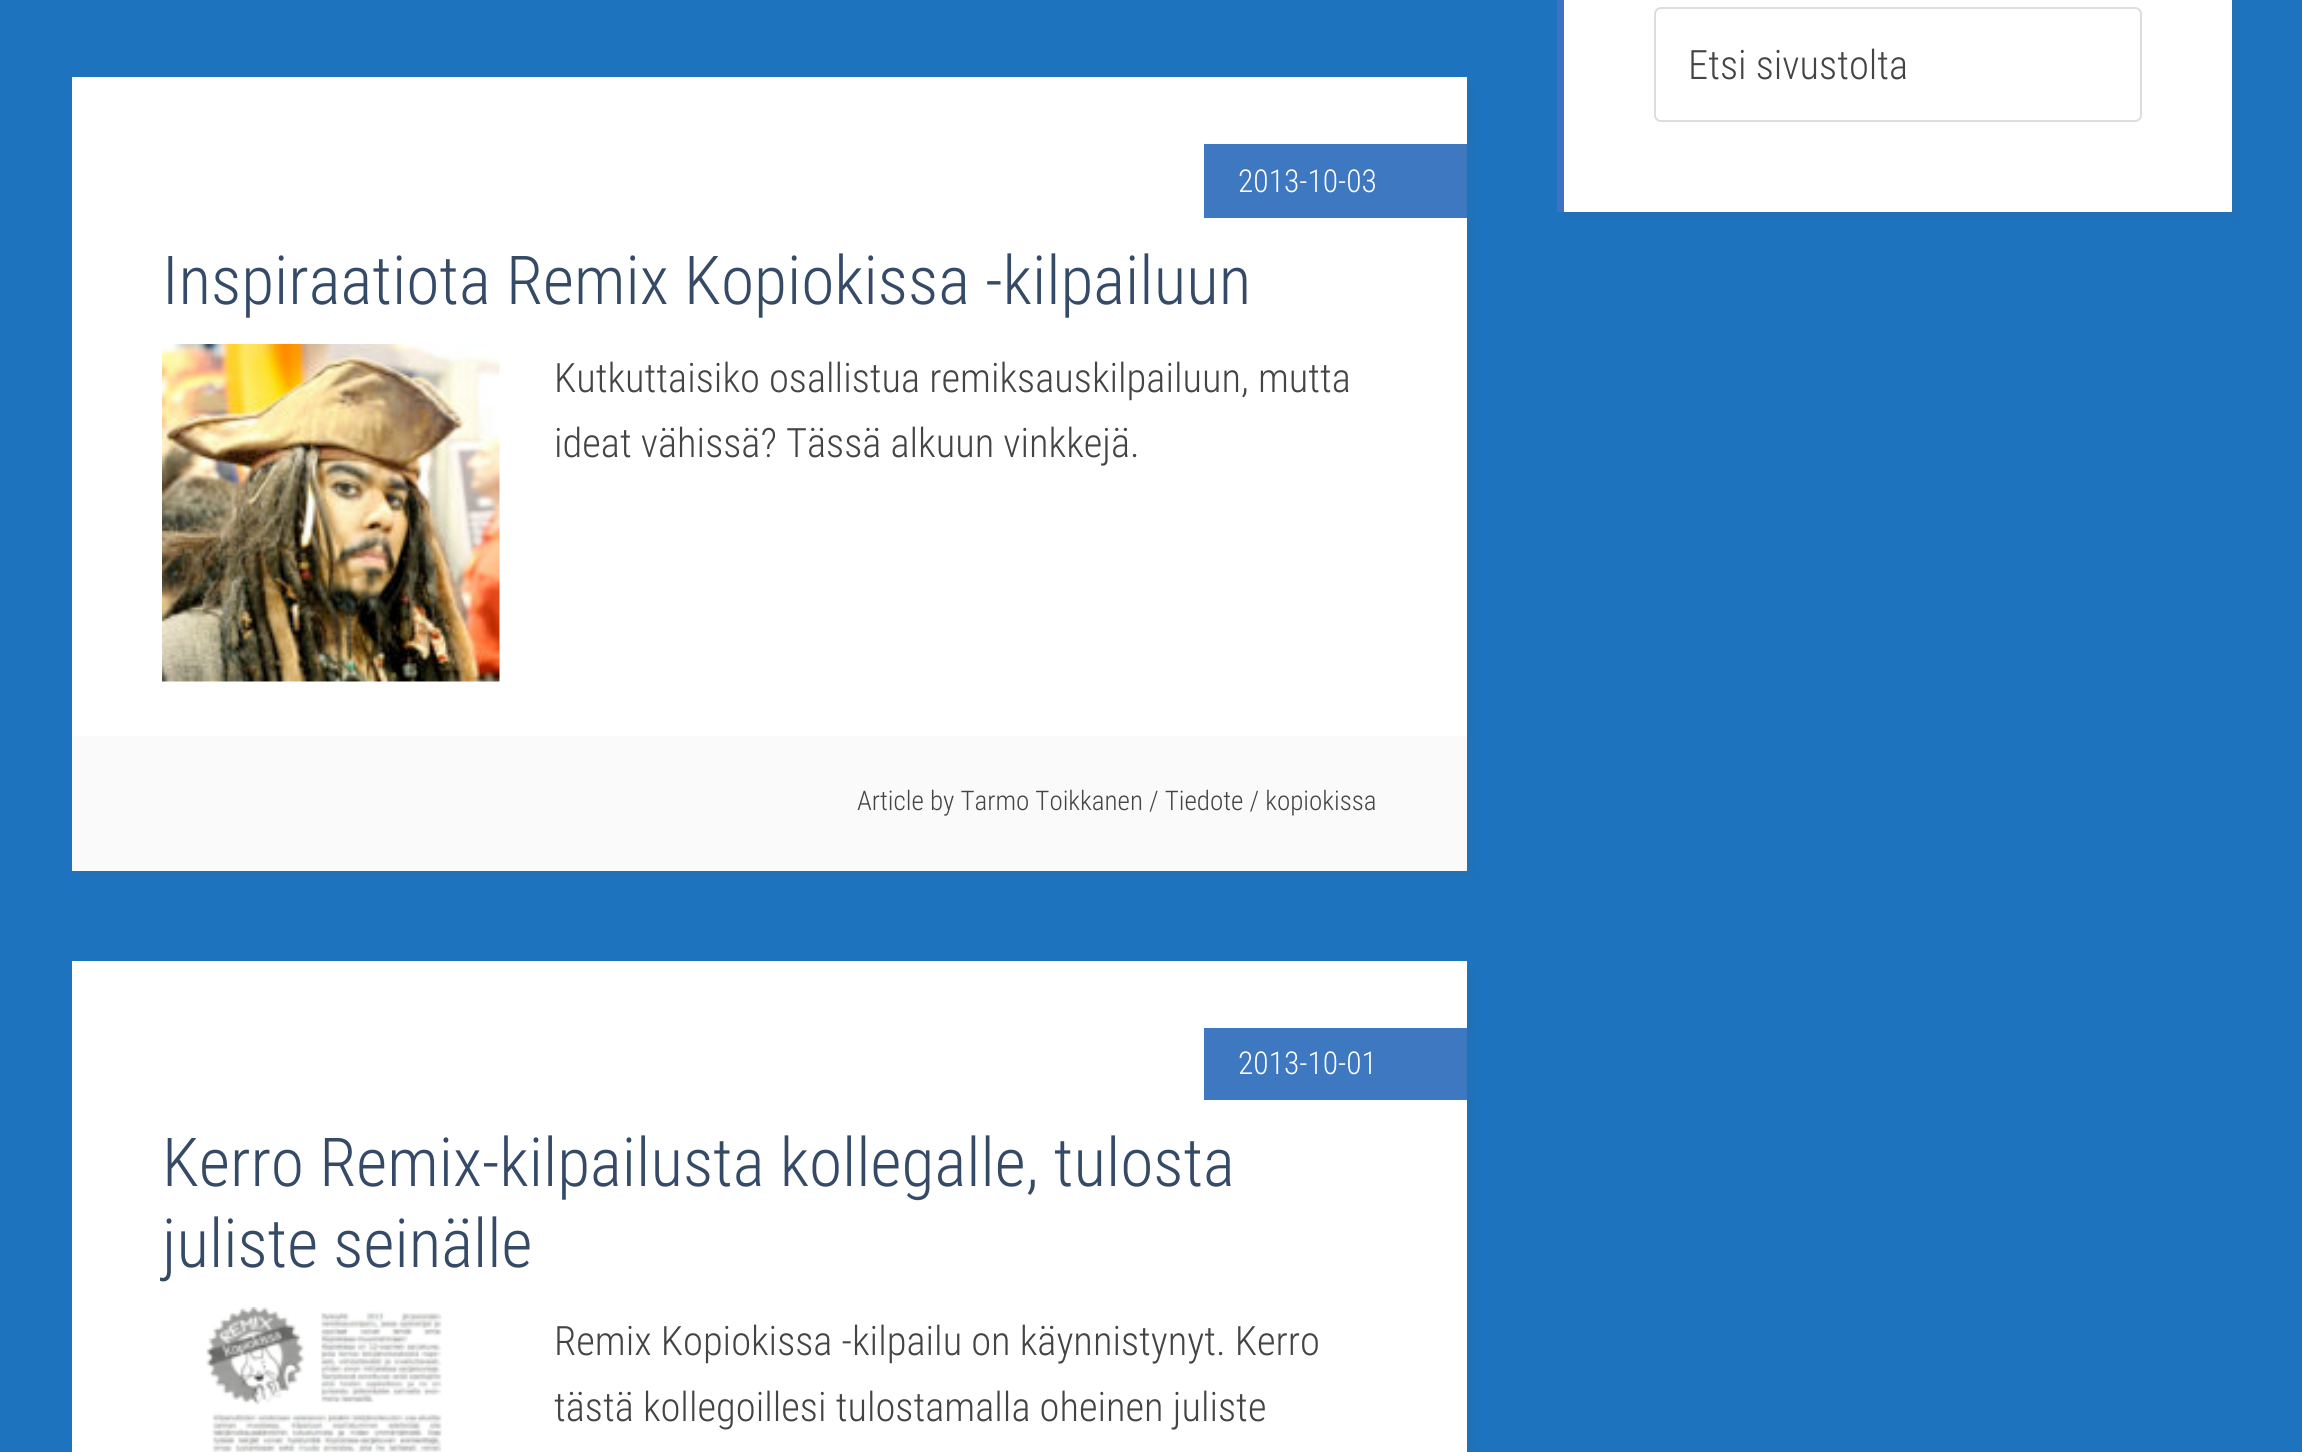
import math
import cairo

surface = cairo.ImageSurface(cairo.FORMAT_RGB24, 2302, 1452)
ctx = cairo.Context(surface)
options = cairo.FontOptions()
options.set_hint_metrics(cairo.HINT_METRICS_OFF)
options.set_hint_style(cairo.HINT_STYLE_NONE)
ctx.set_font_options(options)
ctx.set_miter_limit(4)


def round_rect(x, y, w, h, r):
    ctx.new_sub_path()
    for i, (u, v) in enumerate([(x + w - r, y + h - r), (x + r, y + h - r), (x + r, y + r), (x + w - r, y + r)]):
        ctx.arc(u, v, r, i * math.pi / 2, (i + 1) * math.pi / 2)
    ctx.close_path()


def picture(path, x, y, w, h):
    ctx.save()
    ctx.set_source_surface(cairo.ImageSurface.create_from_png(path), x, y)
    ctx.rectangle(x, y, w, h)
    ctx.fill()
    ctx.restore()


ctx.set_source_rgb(0.118, 0.451, 0.745)
ctx.paint()
ctx.set_source_rgb(0.125, 0.443, 0.722)
ctx.new_path()
ctx.move_to(1564, 212)
ctx.line_to(1564, 218)
ctx.line_to(2239, 218)
ctx.line_to(2239, -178)
ctx.line_to(2232, -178)
ctx.line_to(2232, 212)
ctx.close_path()
ctx.fill()
ctx.set_source_rgb(1, 1, 1)
ctx.rectangle(1564, 0, 668, 212)
ctx.fill()
ctx.set_source_rgb(0.247, 0.443, 0.765)
ctx.rectangle(1557, 0, 7, 212)
ctx.fill()
round_rect(1655, 8, 486, 113, 6)
ctx.set_source_rgb(0.867, 0.867, 0.867)
ctx.stroke()
ctx.select_font_face("Roboto Condensed Light")
ctx.set_font_size(40.5)
ctx.set_source_rgb(0.267, 0.267, 0.267)
ctx.move_to(1688, 79)
ctx.show_text("Etsi sivustolta")
ctx.set_source_rgb(0.125, 0.443, 0.722)
ctx.new_path()
ctx.move_to(79, 871)
ctx.line_to(79, 878)
ctx.line_to(1474, 878)
ctx.line_to(1474, 83)
ctx.line_to(1467, 83)
ctx.line_to(1467, 871)
ctx.close_path()
ctx.fill()
ctx.set_source_rgb(1, 1, 1)
ctx.rectangle(72, 77, 1395, 659)
ctx.fill()
ctx.set_source_rgb(0.239, 0.471, 0.757)
ctx.rectangle(1204, 144, 263, 74)
ctx.fill()
ctx.set_font_size(31.5)
ctx.set_source_rgb(1, 1, 1)
ctx.move_to(1238, 192)
ctx.show_text("2013-10-03")
ctx.set_font_size(67.5)
ctx.set_source_rgb(0.204, 0.29, 0.4)
ctx.move_to(162, 304)
ctx.show_text("Inspiraatiota Remix Kopiokissa -kilpailuun")
picture("img1.png", 162, 344, 338, 338)
ctx.set_font_size(40.5)
ctx.set_source_rgb(0.267, 0.267, 0.267)
ctx.move_to(554, 392)
ctx.show_text("Kutkuttaisiko osallistua remiksauskilpailuun, mutta")
ctx.move_to(554, 457)
ctx.show_text("ideat vähissä? Tässä alkuun vinkkejä.")
ctx.set_source_rgb(0.98, 0.98, 0.98)
ctx.rectangle(72, 736, 1395, 135)
ctx.fill()
ctx.set_font_size(27)
ctx.set_source_rgb(0.267, 0.267, 0.267)
ctx.move_to(857, 810)
ctx.show_text("Article by Tarmo Toikkanen / Tiedote / kopiokissa")
ctx.set_source_rgb(0.125, 0.443, 0.722)
ctx.new_path()
ctx.move_to(79, 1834)
ctx.line_to(79, 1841)
ctx.line_to(1474, 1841)
ctx.line_to(1474, 968)
ctx.line_to(1467, 968)
ctx.line_to(1467, 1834)
ctx.close_path()
ctx.fill()
ctx.set_source_rgb(1, 1, 1)
ctx.rectangle(72, 961, 1395, 491)
ctx.fill()
ctx.set_source_rgb(0.239, 0.471, 0.757)
ctx.rectangle(1204, 1028, 263, 72)
ctx.fill()
ctx.set_font_size(31.5)
ctx.set_source_rgb(1, 1, 1)
ctx.move_to(1238, 1074)
ctx.show_text("2013-10-01")
ctx.set_font_size(67.5)
ctx.set_source_rgb(0.204, 0.29, 0.4)
ctx.move_to(162, 1186)
ctx.show_text("Kerro Remix-kilpailusta kollegalle, tulosta")
ctx.move_to(162, 1267)
ctx.show_text("juliste seinälle")
picture("img2.png", 206, 1307, 236, 145)
ctx.set_font_size(40.5)
ctx.set_source_rgb(0.267, 0.267, 0.267)
ctx.move_to(554, 1355)
ctx.show_text("Remix Kopiokissa -kilpailu on käynnistynyt. Kerro")
ctx.move_to(554, 1421)
ctx.show_text("tästä kollegoillesi tulostamalla oheinen juliste")
surface.write_to_png("page.png")
